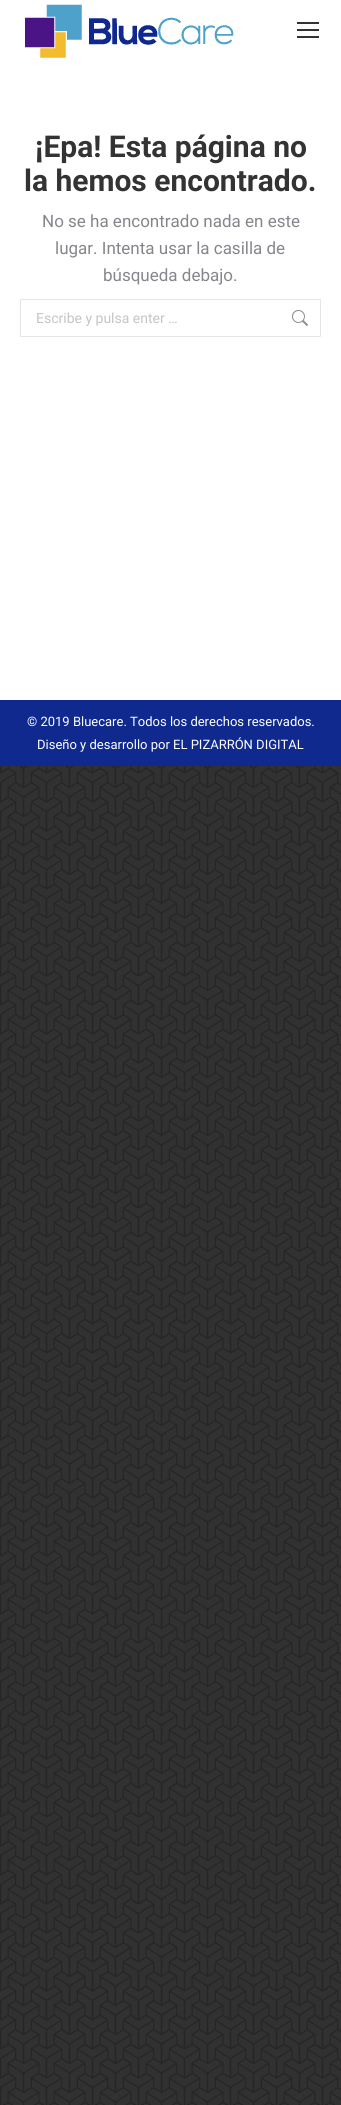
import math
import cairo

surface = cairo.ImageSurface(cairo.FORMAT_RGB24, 341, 2105)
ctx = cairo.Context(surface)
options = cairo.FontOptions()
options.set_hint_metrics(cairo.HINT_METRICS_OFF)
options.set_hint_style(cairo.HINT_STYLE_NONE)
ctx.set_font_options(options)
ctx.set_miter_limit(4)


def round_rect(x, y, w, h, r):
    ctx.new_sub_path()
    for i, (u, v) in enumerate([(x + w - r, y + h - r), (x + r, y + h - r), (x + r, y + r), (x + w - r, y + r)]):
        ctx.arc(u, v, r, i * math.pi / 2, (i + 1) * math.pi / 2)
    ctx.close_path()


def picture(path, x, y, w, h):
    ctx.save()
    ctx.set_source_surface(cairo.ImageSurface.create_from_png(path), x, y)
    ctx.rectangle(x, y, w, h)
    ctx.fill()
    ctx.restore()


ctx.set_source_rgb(1, 1, 1)
ctx.paint()
picture("img1.png", 0, 766, 341, 1339)
picture("img2.png", 25, 4, 209, 54)
ctx.set_source_rgb(0.2, 0.2, 0.2)
ctx.rectangle(297, 22, 22, 2)
ctx.fill()
ctx.rectangle(297, 29, 22, 2)
ctx.fill()
ctx.rectangle(297, 36, 22, 2)
ctx.fill()
ctx.select_font_face("Roboto", cairo.FONT_SLANT_NORMAL, cairo.FONT_WEIGHT_BOLD)
ctx.set_font_size(30)
ctx.move_to(35, 157)
ctx.show_text("¡Epa! Esta página no")
ctx.move_to(24, 191)
ctx.show_text("la hemos encontrado.")
ctx.select_font_face("Roboto")
ctx.set_font_size(17)
ctx.set_source_rgb(0.522, 0.525, 0.549)
ctx.move_to(42, 227)
ctx.show_text("No se ha encontrado nada en este")
ctx.move_to(55, 254)
ctx.show_text("lugar. Intenta usar la casilla de")
ctx.move_to(103, 281)
ctx.show_text("búsqueda debajo.")
round_rect(20.5, 299.5, 300, 37, 0.5)
ctx.set_source_rgb(0.898, 0.898, 0.898)
ctx.set_line_width(1)
ctx.stroke()
ctx.set_font_size(14)
ctx.set_source_rgb(0.769, 0.773, 0.788)
ctx.move_to(36, 323)
ctx.show_text("Escribe y pulsa enter …")
picture("img3.png", 292, 310, 16, 16)
ctx.set_source_rgb(0.059, 0.161, 0.561)
ctx.rectangle(0, 700, 341, 66)
ctx.fill()
ctx.set_font_size(13)
ctx.set_source_rgb(1, 1, 1)
ctx.move_to(27, 726)
ctx.show_text("© 2019 Bluecare. Todos los derechos reservados.")
ctx.move_to(37, 749)
ctx.show_text("Diseño y desarrollo por EL PIZARRÓN DIGITAL")
surface.write_to_png("page.png")
